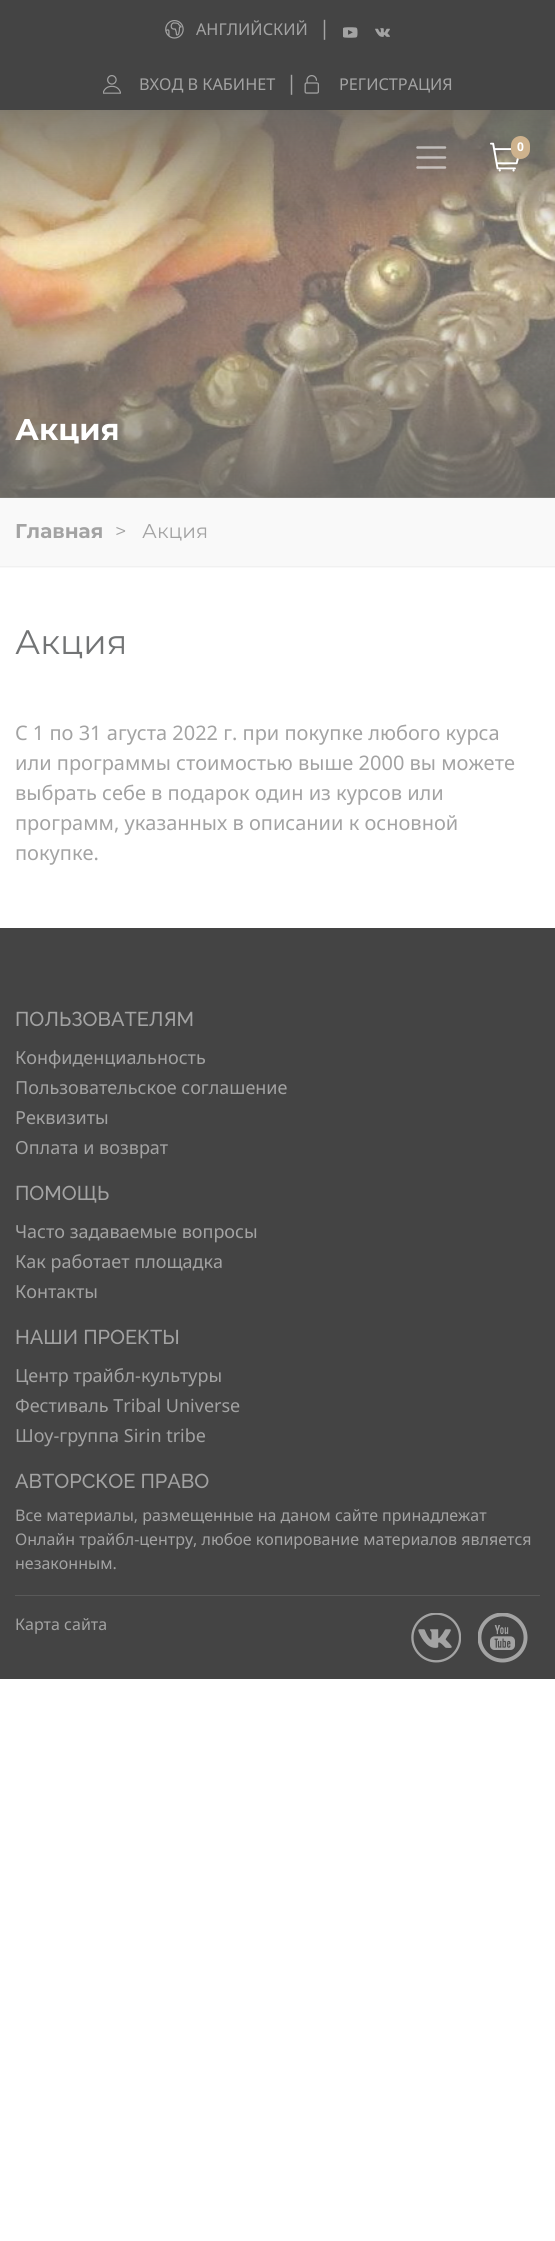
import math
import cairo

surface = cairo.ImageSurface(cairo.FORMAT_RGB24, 555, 2241)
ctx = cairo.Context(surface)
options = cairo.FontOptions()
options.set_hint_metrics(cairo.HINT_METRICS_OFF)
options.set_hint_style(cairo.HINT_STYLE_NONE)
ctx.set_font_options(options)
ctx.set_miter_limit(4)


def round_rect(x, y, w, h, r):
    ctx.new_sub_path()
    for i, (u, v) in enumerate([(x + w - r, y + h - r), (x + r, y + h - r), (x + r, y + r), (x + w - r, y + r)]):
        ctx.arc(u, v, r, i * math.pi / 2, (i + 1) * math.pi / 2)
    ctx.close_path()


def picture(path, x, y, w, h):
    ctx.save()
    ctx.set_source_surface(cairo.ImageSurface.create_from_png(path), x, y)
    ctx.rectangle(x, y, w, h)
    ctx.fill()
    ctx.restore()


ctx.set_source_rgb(1, 1, 1)
ctx.paint()
ctx.set_source_rgb(0.267, 0.267, 0.267)
ctx.rectangle(0, 0, 555, 110)
ctx.fill()
picture("img1.png", 165, 20, 19, 19)
ctx.select_font_face("Noto Sans")
ctx.set_font_size(16.25)
ctx.set_source_rgb(0.639, 0.639, 0.639)
ctx.move_to(196, 35)
ctx.show_text("АНГЛИЙСКИЙ")
ctx.set_font_size(20)
ctx.move_to(319, 35)
ctx.show_text("|")
picture("img2.png", 343, 27, 15, 11)
picture("img3.png", 375, 28, 15, 9)
picture("img4.png", 103, 75, 18, 19)
ctx.set_font_size(16.25)
ctx.move_to(139, 90)
ctx.show_text("ВХОД В КАБИНЕТ")
ctx.set_font_size(20)
ctx.move_to(286, 90)
ctx.show_text("|")
picture("img5.png", 304, 75, 15, 19)
ctx.set_font_size(16.25)
ctx.move_to(339, 90)
ctx.show_text("РЕГИСТРАЦИЯ")
picture("img7.png", 0, 110, 555, 388)
gradient = cairo.LinearGradient(277, 110, 278, 498)
gradient.add_color_stop_rgba(0, 0.396, 0.392, 0.376, 0.8)
gradient.add_color_stop_rgba(0.35, 0.396, 0.392, 0.376, 0)
gradient.add_color_stop_rgba(0.45, 0.396, 0.392, 0.376, 0)
gradient.add_color_stop_rgba(1, 0.396, 0.392, 0.376, 0.8)
ctx.set_source(gradient)
ctx.rectangle(0, 110, 555, 388)
ctx.fill()
ctx.new_path()
ctx.move_to(417.5, 147.5)
ctx.line_to(445, 147.5)
ctx.move_to(417.5, 157.5)
ctx.line_to(445, 157.5)
ctx.move_to(417.5, 167.5)
ctx.line_to(445, 167.5)
ctx.set_source_rgba(1, 1, 1, 0.55)
ctx.set_line_width(2.5)
ctx.set_line_cap(cairo.LINE_CAP_ROUND)
ctx.stroke()
picture("img6.png", 490, 142, 29, 30)
ctx.set_source_rgb(0.808, 0.698, 0.553)
round_rect(511, 136, 19, 23, 9.5)
ctx.fill()
ctx.select_font_face("Noto Sans", cairo.FONT_SLANT_NORMAL, cairo.FONT_WEIGHT_BOLD)
ctx.set_font_size(12)
ctx.set_source_rgb(1, 1, 1)
ctx.move_to(517, 151)
ctx.show_text("0")
ctx.select_font_face("Montserrat", cairo.FONT_SLANT_NORMAL, cairo.FONT_WEIGHT_BOLD)
ctx.set_font_size(30)
ctx.move_to(15, 440)
ctx.show_text("Акция")
ctx.set_source_rgb(0.976, 0.976, 0.976)
ctx.rectangle(0, 498, 555, 70)
ctx.fill()
ctx.set_source_rgb(0.945, 0.945, 0.945)
ctx.rectangle(0, 566, 555, 1)
ctx.fill()
ctx.set_font_size(20)
ctx.set_source_rgb(0.639, 0.639, 0.639)
ctx.move_to(15, 538)
ctx.show_text("Главная")
ctx.select_font_face("Montserrat")
ctx.move_to(115, 538)
ctx.show_text(">")
ctx.move_to(142, 538)
ctx.show_text("Акция")
ctx.set_font_size(34)
ctx.set_source_rgb(0.447, 0.455, 0.459)
ctx.move_to(15, 654)
ctx.show_text("Акция")
ctx.select_font_face("Noto Sans")
ctx.set_font_size(20)
ctx.set_source_rgb(0.639, 0.639, 0.639)
ctx.move_to(15, 740)
ctx.show_text("C 1 по 31 агуста 2022 г. при покупке любого курса")
ctx.move_to(15, 770)
ctx.show_text("или программы стоимостью выше 2000 вы можете")
ctx.move_to(15, 800)
ctx.show_text("выбрать себе в подарок один из курсов или")
ctx.move_to(15, 830)
ctx.show_text("программ, указанных в описании к основной")
ctx.move_to(15, 860)
ctx.show_text("покупке.")
ctx.set_source_rgb(0.267, 0.267, 0.267)
ctx.rectangle(0, 928, 555, 751)
ctx.fill()
ctx.select_font_face("Raleway Medium")
ctx.set_source_rgb(0.639, 0.639, 0.639)
ctx.move_to(15, 1026)
ctx.show_text("ПОЛЬЗОВАТЕЛЯМ")
ctx.select_font_face("Noto Sans")
ctx.set_font_size(18)
ctx.move_to(15, 1064)
ctx.show_text("Конфиденциальность")
ctx.move_to(15, 1094)
ctx.show_text("Пользовательское соглашение")
ctx.move_to(15, 1124)
ctx.show_text("Реквизиты")
ctx.move_to(15, 1154)
ctx.show_text("Оплата и возврат")
ctx.select_font_face("Raleway Medium")
ctx.set_font_size(20)
ctx.move_to(15, 1200)
ctx.show_text("ПОМОЩЬ")
ctx.select_font_face("Noto Sans")
ctx.set_font_size(18)
ctx.move_to(15, 1238)
ctx.show_text("Часто задаваемые вопросы")
ctx.move_to(15, 1268)
ctx.show_text("Как работает площадка")
ctx.move_to(15, 1298)
ctx.show_text("Контакты")
ctx.select_font_face("Raleway Medium")
ctx.set_font_size(20)
ctx.move_to(15, 1344)
ctx.show_text("НАШИ ПРОЕКТЫ")
ctx.select_font_face("Noto Sans")
ctx.set_font_size(18)
ctx.move_to(15, 1382)
ctx.show_text("Центр трайбл-культуры")
ctx.move_to(15, 1412)
ctx.show_text("Фестиваль Tribal Universe")
ctx.move_to(15, 1442)
ctx.show_text("Шоу-группа Sirin tribe")
ctx.select_font_face("Raleway Medium")
ctx.set_font_size(20)
ctx.move_to(15, 1488)
ctx.show_text("АВТОРСКОЕ ПРАВО")
ctx.select_font_face("Noto Sans")
ctx.set_font_size(16)
ctx.move_to(15, 1521)
ctx.show_text("Все материалы, размещенные на даном сайте принадлежат")
ctx.move_to(15, 1545)
ctx.show_text("Онлайн трайбл-центру, любое копирование материалов является")
ctx.move_to(15, 1569)
ctx.show_text("незаконным.")
ctx.set_source_rgb(0.349, 0.349, 0.349)
ctx.rectangle(15, 1595, 525, 1)
ctx.fill()
ctx.set_source_rgb(0.639, 0.639, 0.639)
ctx.move_to(15, 1630)
ctx.show_text("Карта сайта")
picture("img8.png", 411, 1613, 50, 50)
picture("img9.png", 478, 1613, 50, 50)
surface.write_to_png("page.png")
